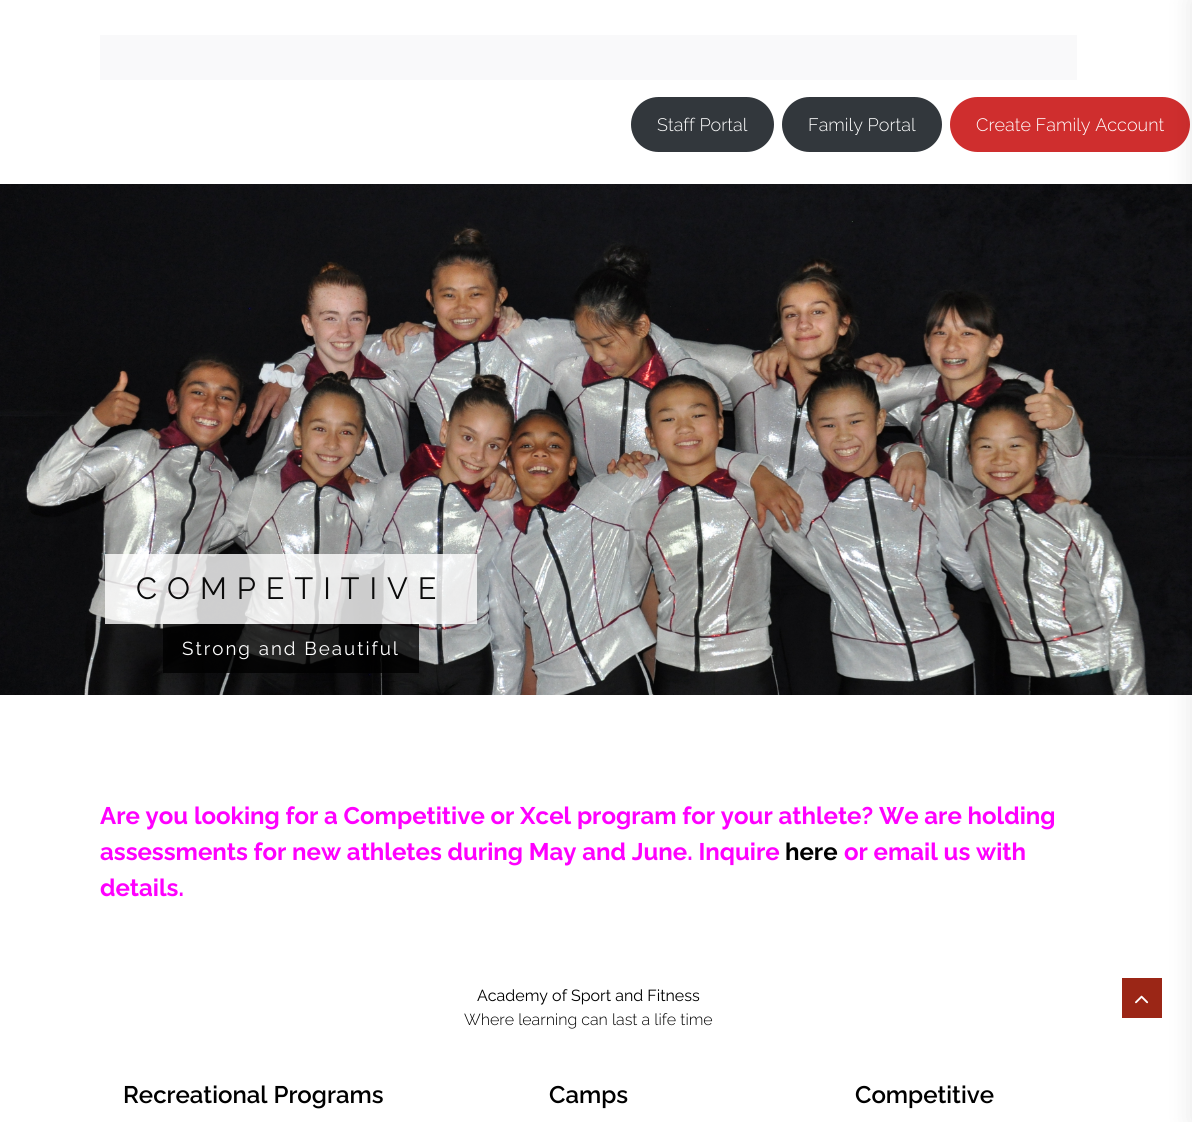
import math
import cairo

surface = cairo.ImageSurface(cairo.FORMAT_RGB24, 1192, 1122)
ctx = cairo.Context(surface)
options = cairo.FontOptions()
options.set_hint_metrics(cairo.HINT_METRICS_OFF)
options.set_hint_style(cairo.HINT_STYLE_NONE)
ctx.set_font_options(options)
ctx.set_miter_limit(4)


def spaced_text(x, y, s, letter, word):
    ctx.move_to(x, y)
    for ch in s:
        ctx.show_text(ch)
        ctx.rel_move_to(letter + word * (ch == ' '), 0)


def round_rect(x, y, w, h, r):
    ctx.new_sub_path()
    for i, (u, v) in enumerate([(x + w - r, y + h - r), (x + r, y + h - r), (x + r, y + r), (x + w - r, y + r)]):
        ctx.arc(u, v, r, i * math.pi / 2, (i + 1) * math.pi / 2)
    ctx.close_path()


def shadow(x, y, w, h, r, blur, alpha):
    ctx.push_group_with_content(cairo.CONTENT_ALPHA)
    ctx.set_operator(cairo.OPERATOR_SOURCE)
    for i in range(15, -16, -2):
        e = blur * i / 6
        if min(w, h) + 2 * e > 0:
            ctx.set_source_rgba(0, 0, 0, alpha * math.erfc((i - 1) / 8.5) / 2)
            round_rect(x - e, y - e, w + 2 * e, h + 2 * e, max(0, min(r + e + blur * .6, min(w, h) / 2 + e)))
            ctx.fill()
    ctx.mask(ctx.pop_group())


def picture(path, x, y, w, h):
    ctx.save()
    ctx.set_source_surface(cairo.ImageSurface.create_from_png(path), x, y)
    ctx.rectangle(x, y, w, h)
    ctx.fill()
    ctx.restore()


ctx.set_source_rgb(1, 1, 1)
ctx.paint()
ctx.set_source_rgb(0.973, 0.976, 0.98)
ctx.rectangle(100, 35, 977, 45)
ctx.fill()
ctx.set_source_rgb(0.196, 0.216, 0.235)
round_rect(630, 96, 145, 57, 28.5)
ctx.fill_preserve()
ctx.set_source_rgb(1, 1, 1)
ctx.stroke()
ctx.select_font_face("Raleway Light")
ctx.set_font_size(18)
ctx.move_to(657, 131)
ctx.show_text("Staff Portal")
ctx.set_source_rgb(0.196, 0.216, 0.235)
round_rect(781, 96, 162, 57, 28.5)
ctx.fill_preserve()
ctx.set_source_rgb(1, 1, 1)
ctx.stroke()
ctx.move_to(808, 131)
ctx.show_text("Family Portal")
ctx.set_source_rgb(0.812, 0.18, 0.18)
round_rect(949, 96, 242, 57, 28.5)
ctx.fill_preserve()
ctx.set_source_rgb(1, 1, 1)
ctx.stroke()
ctx.move_to(976, 131)
ctx.show_text("Create Family Account")
picture("img1.png", 0, 184, 1192, 511)
ctx.set_source_rgba(1, 1, 1, 0.8)
ctx.rectangle(105, 554, 372, 70)
ctx.fill()
ctx.select_font_face("Raleway")
ctx.set_font_size(30.6)
ctx.set_source_rgb(0.043, 0.043, 0.043)
spaced_text(136, 599, "COMPETITIVE", 10, 0)
ctx.set_source_rgba(0, 0, 0, 0.8)
ctx.rectangle(163, 624, 256, 49)
ctx.fill()
ctx.set_font_size(18.75)
ctx.set_source_rgb(1, 1, 1)
spaced_text(182, 655, "Strong and Beautiful", 2, 0)
ctx.select_font_face("Raleway", cairo.FONT_SLANT_NORMAL, cairo.FONT_WEIGHT_BOLD)
ctx.set_font_size(24)
ctx.set_source_rgb(1, 0, 1)
ctx.move_to(100, 824)
ctx.show_text("Are you looking for a Competitive or Xcel program for your athlete? We are holding")
ctx.move_to(100, 860)
ctx.show_text("assessments for new athletes during May and June. Inquire")
ctx.set_source_rgb(0, 0, 0)
ctx.move_to(785, 860)
ctx.show_text("here")
ctx.set_source_rgb(1, 0, 1)
ctx.move_to(844, 860)
ctx.show_text("or email us with")
ctx.move_to(100, 896)
ctx.show_text("details.")
ctx.select_font_face("Raleway")
ctx.set_font_size(16)
ctx.set_source_rgb(0, 0, 0)
ctx.move_to(477, 1001)
ctx.show_text("Academy of Sport and Fitness")
ctx.select_font_face("Raleway Light")
ctx.move_to(464, 1025)
ctx.show_text("Where learning can last a life time")
ctx.select_font_face("Raleway SemiBold")
ctx.set_font_size(24)
ctx.move_to(123, 1103)
ctx.show_text("Recreational Programs")
ctx.move_to(549, 1103)
ctx.show_text("Camps")
ctx.move_to(855, 1103)
ctx.show_text("Competitive")
ctx.set_source_rgb(0.608, 0.149, 0.086)
ctx.rectangle(1122, 978, 40, 40)
ctx.fill()
ctx.set_source_rgb(0, 0, 0)
shadow(1192, 0, 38, 1122, 0, 12.5, 0.1)
picture("img2.png", 1135, 995, 14, 9)
surface.write_to_png("page.png")
